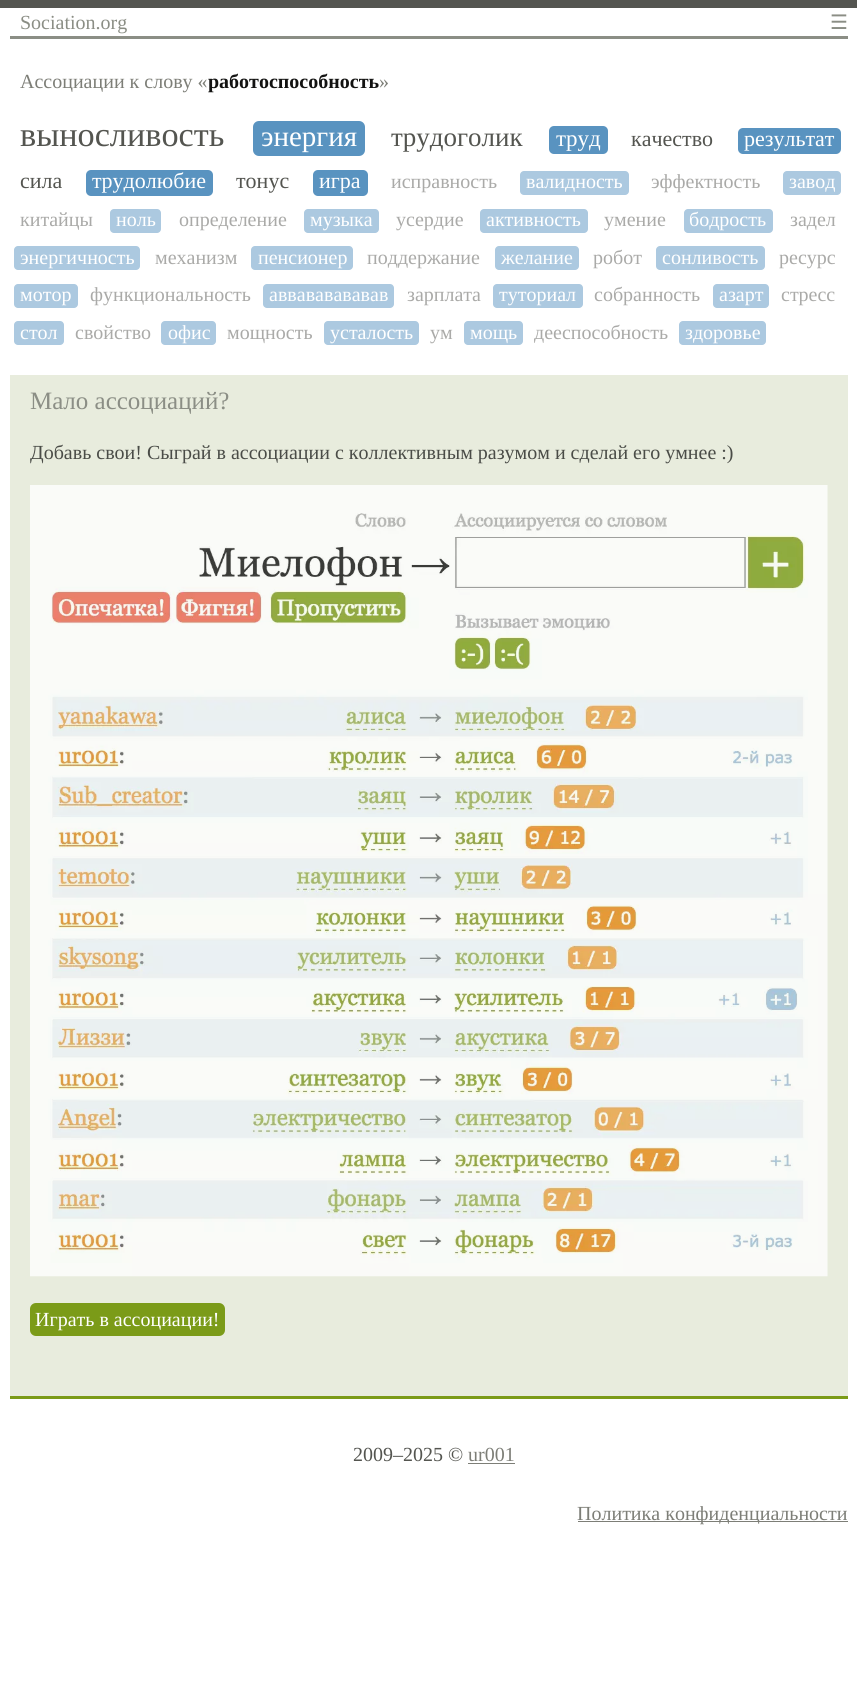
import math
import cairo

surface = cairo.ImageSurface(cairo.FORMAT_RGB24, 857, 1695)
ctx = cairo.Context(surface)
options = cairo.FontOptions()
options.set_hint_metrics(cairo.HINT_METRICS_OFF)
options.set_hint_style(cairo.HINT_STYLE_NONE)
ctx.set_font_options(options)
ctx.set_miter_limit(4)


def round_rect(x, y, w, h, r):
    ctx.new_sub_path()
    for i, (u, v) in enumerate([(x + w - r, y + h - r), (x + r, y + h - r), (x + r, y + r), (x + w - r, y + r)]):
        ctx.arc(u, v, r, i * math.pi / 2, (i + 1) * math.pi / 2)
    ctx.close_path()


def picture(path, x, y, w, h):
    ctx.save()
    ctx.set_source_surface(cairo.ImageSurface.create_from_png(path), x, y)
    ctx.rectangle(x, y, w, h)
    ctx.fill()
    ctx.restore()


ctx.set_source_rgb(1, 1, 1)
ctx.paint()
ctx.set_source_rgb(0.329, 0.333, 0.314)
ctx.rectangle(0, 0, 857, 8)
ctx.fill()
ctx.set_source_rgb(0.545, 0.557, 0.522)
ctx.rectangle(10, 36, 838, 3)
ctx.fill()
ctx.select_font_face("Liberation Serif")
ctx.set_font_size(20)
ctx.move_to(20, 29)
ctx.show_text("Sociation.org")
ctx.select_font_face("DejaVu Sans")
ctx.move_to(830, 29)
ctx.show_text("☰")
ctx.select_font_face("Liberation Serif")
ctx.set_source_rgb(0.49, 0.494, 0.467)
ctx.move_to(20, 88)
ctx.show_text("Ассоциации к слову «")
ctx.select_font_face("Liberation Serif", cairo.FONT_SLANT_NORMAL, cairo.FONT_WEIGHT_BOLD)
ctx.set_source_rgb(0.075, 0.075, 0.071)
ctx.move_to(208, 88)
ctx.show_text("работоспособность")
ctx.select_font_face("Liberation Serif")
ctx.set_source_rgb(0.49, 0.494, 0.467)
ctx.move_to(379, 88)
ctx.show_text("»")
ctx.set_font_size(34.25)
ctx.set_source_rgb(0.329, 0.333, 0.314)
ctx.move_to(20, 146)
ctx.show_text("выносливость")
ctx.set_source_rgb(0.349, 0.576, 0.753)
round_rect(253, 121, 112, 35, 6)
ctx.fill()
ctx.set_font_size(29)
ctx.set_source_rgb(1, 1, 1)
ctx.move_to(261, 146)
ctx.show_text("энергия")
ctx.set_font_size(27)
ctx.set_source_rgb(0.329, 0.333, 0.314)
ctx.move_to(391, 146)
ctx.show_text("трудоголик")
ctx.set_source_rgb(0.349, 0.576, 0.753)
round_rect(549, 126, 59, 28, 5)
ctx.fill()
ctx.set_font_size(23)
ctx.set_source_rgb(1, 1, 1)
ctx.move_to(556, 146)
ctx.show_text("труд")
ctx.set_font_size(22)
ctx.set_source_rgb(0.329, 0.333, 0.314)
ctx.move_to(631, 146)
ctx.show_text("качество")
ctx.set_source_rgb(0.349, 0.576, 0.753)
round_rect(738, 128, 103, 26, 5)
ctx.fill()
ctx.set_source_rgb(1, 1, 1)
ctx.move_to(744, 146)
ctx.show_text("результат")
ctx.set_source_rgb(0.329, 0.333, 0.314)
ctx.move_to(20, 188)
ctx.show_text("сила")
ctx.set_source_rgb(0.349, 0.576, 0.753)
round_rect(86, 170, 127, 26, 5)
ctx.fill()
ctx.set_source_rgb(1, 1, 1)
ctx.move_to(92, 188)
ctx.show_text("трудолюбие")
ctx.set_source_rgb(0.329, 0.333, 0.314)
ctx.move_to(236, 188)
ctx.show_text("тонус")
ctx.set_source_rgb(0.349, 0.576, 0.753)
round_rect(313, 170, 55, 26, 5)
ctx.fill()
ctx.set_source_rgb(1, 1, 1)
ctx.move_to(319, 188)
ctx.show_text("игра")
ctx.set_font_size(20)
ctx.set_source_rgb(0.667, 0.667, 0.659)
ctx.move_to(391, 188)
ctx.show_text("исправность")
ctx.set_source_rgb(0.675, 0.788, 0.878)
round_rect(520, 171, 109, 24, 4)
ctx.fill()
ctx.set_source_rgb(1, 1, 1)
ctx.move_to(526, 188)
ctx.show_text("валидность")
ctx.set_source_rgb(0.667, 0.667, 0.659)
ctx.move_to(651, 188)
ctx.show_text("эффектность")
ctx.set_source_rgb(0.675, 0.788, 0.878)
round_rect(783, 171, 58, 24, 4)
ctx.fill()
ctx.set_source_rgb(1, 1, 1)
ctx.move_to(789, 188)
ctx.show_text("завод")
ctx.set_source_rgb(0.667, 0.667, 0.659)
ctx.move_to(20, 226)
ctx.show_text("китайцы")
ctx.set_source_rgb(0.675, 0.788, 0.878)
round_rect(110, 209, 51, 24, 4)
ctx.fill()
ctx.set_source_rgb(1, 1, 1)
ctx.move_to(116, 226)
ctx.show_text("ноль")
ctx.set_source_rgb(0.667, 0.667, 0.659)
ctx.move_to(179, 226)
ctx.show_text("определение")
ctx.set_source_rgb(0.675, 0.788, 0.878)
round_rect(304, 209, 75, 24, 4)
ctx.fill()
ctx.set_source_rgb(1, 1, 1)
ctx.move_to(310, 226)
ctx.show_text("музыка")
ctx.set_source_rgb(0.667, 0.667, 0.659)
ctx.move_to(396, 226)
ctx.show_text("усердие")
ctx.set_source_rgb(0.675, 0.788, 0.878)
round_rect(480, 209, 108, 24, 4)
ctx.fill()
ctx.set_source_rgb(1, 1, 1)
ctx.move_to(486, 226)
ctx.show_text("активность")
ctx.set_source_rgb(0.667, 0.667, 0.659)
ctx.move_to(604, 226)
ctx.show_text("умение")
ctx.set_source_rgb(0.675, 0.788, 0.878)
round_rect(684, 209, 89, 24, 4)
ctx.fill()
ctx.set_source_rgb(1, 1, 1)
ctx.move_to(689, 226)
ctx.show_text("бодрость")
ctx.set_source_rgb(0.667, 0.667, 0.659)
ctx.move_to(790, 226)
ctx.show_text("задел")
ctx.set_source_rgb(0.675, 0.788, 0.878)
round_rect(14, 246, 126, 24, 4)
ctx.fill()
ctx.set_source_rgb(1, 1, 1)
ctx.move_to(20, 264)
ctx.show_text("энергичность")
ctx.set_source_rgb(0.667, 0.667, 0.659)
ctx.move_to(155, 264)
ctx.show_text("механизм")
ctx.set_source_rgb(0.675, 0.788, 0.878)
round_rect(251, 246, 102, 24, 4)
ctx.fill()
ctx.set_source_rgb(1, 1, 1)
ctx.move_to(258, 264)
ctx.show_text("пенсионер")
ctx.set_source_rgb(0.667, 0.667, 0.659)
ctx.move_to(367, 264)
ctx.show_text("поддержание")
ctx.set_source_rgb(0.675, 0.788, 0.878)
round_rect(495, 246, 84, 24, 4)
ctx.fill()
ctx.set_source_rgb(1, 1, 1)
ctx.move_to(501, 264)
ctx.show_text("желание")
ctx.set_source_rgb(0.667, 0.667, 0.659)
ctx.move_to(593, 264)
ctx.show_text("робот")
ctx.set_source_rgb(0.675, 0.788, 0.878)
round_rect(656, 246, 109, 24, 4)
ctx.fill()
ctx.set_source_rgb(1, 1, 1)
ctx.move_to(662, 264)
ctx.show_text("сонливость")
ctx.set_source_rgb(0.667, 0.667, 0.659)
ctx.move_to(779, 264)
ctx.show_text("ресурс")
ctx.set_source_rgb(0.675, 0.788, 0.878)
round_rect(14, 284, 64, 24, 4)
ctx.fill()
ctx.set_source_rgb(1, 1, 1)
ctx.move_to(20, 301)
ctx.show_text("мотор")
ctx.set_source_rgb(0.667, 0.667, 0.659)
ctx.move_to(90, 301)
ctx.show_text("функциональность")
ctx.set_source_rgb(0.675, 0.788, 0.878)
round_rect(263, 284, 131, 24, 4)
ctx.fill()
ctx.set_source_rgb(1, 1, 1)
ctx.move_to(269, 301)
ctx.show_text("аввававававав")
ctx.set_source_rgb(0.667, 0.667, 0.659)
ctx.move_to(407, 301)
ctx.show_text("зарплата")
ctx.set_source_rgb(0.675, 0.788, 0.878)
round_rect(493, 284, 90, 24, 4)
ctx.fill()
ctx.set_source_rgb(1, 1, 1)
ctx.move_to(499, 301)
ctx.show_text("туториал")
ctx.set_source_rgb(0.667, 0.667, 0.659)
ctx.move_to(594, 301)
ctx.show_text("собранность")
ctx.set_source_rgb(0.675, 0.788, 0.878)
round_rect(713, 284, 56, 24, 4)
ctx.fill()
ctx.set_source_rgb(1, 1, 1)
ctx.move_to(719, 301)
ctx.show_text("азарт")
ctx.set_source_rgb(0.667, 0.667, 0.659)
ctx.move_to(781, 301)
ctx.show_text("стресс")
ctx.set_source_rgb(0.675, 0.788, 0.878)
round_rect(14, 321, 50, 24, 4)
ctx.fill()
ctx.set_source_rgb(1, 1, 1)
ctx.move_to(20, 339)
ctx.show_text("стол")
ctx.set_source_rgb(0.667, 0.667, 0.659)
ctx.move_to(75, 339)
ctx.show_text("свойство")
ctx.set_source_rgb(0.675, 0.788, 0.878)
round_rect(161, 321, 55, 24, 4)
ctx.fill()
ctx.set_source_rgb(1, 1, 1)
ctx.move_to(168, 339)
ctx.show_text("офис")
ctx.set_source_rgb(0.667, 0.667, 0.659)
ctx.move_to(227, 339)
ctx.show_text("мощность")
ctx.set_source_rgb(0.675, 0.788, 0.878)
round_rect(324, 321, 95, 24, 4)
ctx.fill()
ctx.set_source_rgb(1, 1, 1)
ctx.move_to(330, 339)
ctx.show_text("усталость")
ctx.set_source_rgb(0.667, 0.667, 0.659)
ctx.move_to(430, 339)
ctx.show_text("ум")
ctx.set_source_rgb(0.675, 0.788, 0.878)
round_rect(464, 321, 59, 24, 4)
ctx.fill()
ctx.set_source_rgb(1, 1, 1)
ctx.move_to(470, 339)
ctx.show_text("мощь")
ctx.set_source_rgb(0.667, 0.667, 0.659)
ctx.move_to(534, 339)
ctx.show_text("дееспособность")
ctx.set_source_rgb(0.675, 0.788, 0.878)
round_rect(679, 321, 87, 24, 4)
ctx.fill()
ctx.set_source_rgb(1, 1, 1)
ctx.move_to(685, 339)
ctx.show_text("здоровье")
ctx.set_source_rgb(0.91, 0.925, 0.867)
ctx.rectangle(10, 375, 838, 1021)
ctx.fill()
ctx.set_source_rgb(0.482, 0.608, 0.094)
ctx.rectangle(10, 1396, 838, 3)
ctx.fill()
ctx.set_font_size(25)
ctx.set_source_rgb(0.545, 0.557, 0.522)
ctx.move_to(30, 409)
ctx.show_text("Мало ассоциаций?")
ctx.set_font_size(20)
ctx.set_source_rgb(0.29, 0.298, 0.278)
ctx.move_to(30, 459)
ctx.show_text("Добавь свои! Сыграй в ассоциации с коллективным разумом и сделай его умнее :)")
picture("img1.png", 30, 485, 798, 792)
ctx.set_source_rgb(0.482, 0.608, 0.094)
round_rect(30, 1303, 195, 33, 6)
ctx.fill()
ctx.set_source_rgb(1, 1, 1)
ctx.move_to(35, 1326)
ctx.show_text("Играть в ассоциации!")
ctx.set_source_rgb(0.329, 0.333, 0.314)
ctx.move_to(353, 1461)
ctx.show_text("2009–2025 ©")
ctx.set_source_rgb(0.49, 0.494, 0.467)
ctx.move_to(468, 1461)
ctx.show_text("ur001")
ctx.rectangle(468, 1463, 47, 1)
ctx.fill()
ctx.rectangle(578, 1521, 270, 1)
ctx.fill()
ctx.move_to(577, 1520)
ctx.show_text("Политика конфиденциальности")
surface.write_to_png("page.png")
